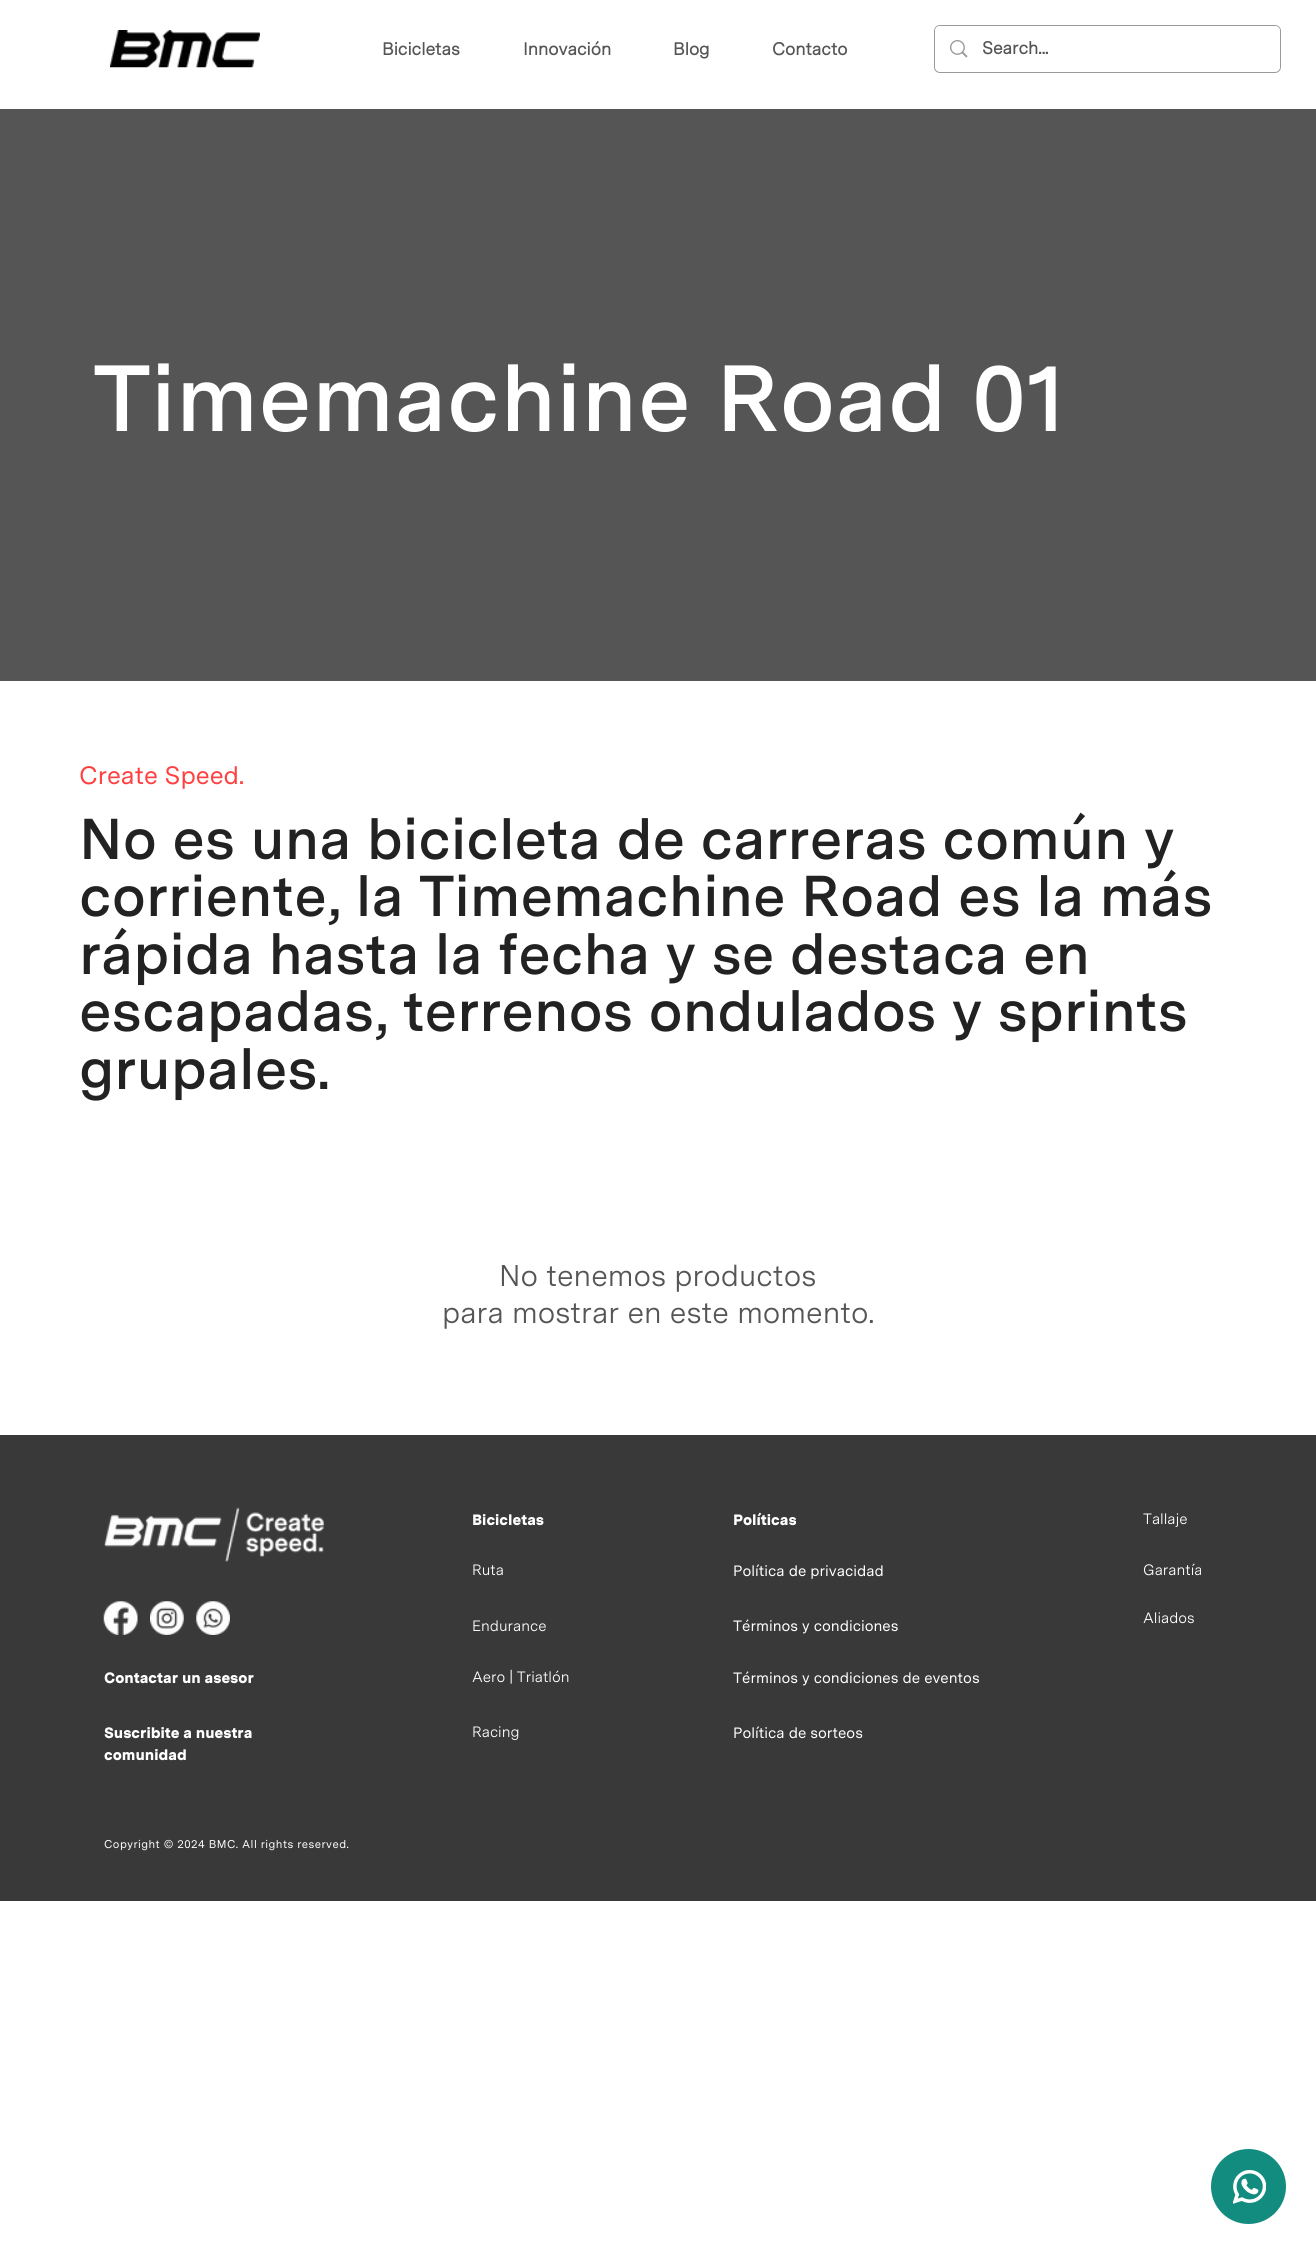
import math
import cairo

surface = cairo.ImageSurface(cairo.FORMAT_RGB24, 1316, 2243)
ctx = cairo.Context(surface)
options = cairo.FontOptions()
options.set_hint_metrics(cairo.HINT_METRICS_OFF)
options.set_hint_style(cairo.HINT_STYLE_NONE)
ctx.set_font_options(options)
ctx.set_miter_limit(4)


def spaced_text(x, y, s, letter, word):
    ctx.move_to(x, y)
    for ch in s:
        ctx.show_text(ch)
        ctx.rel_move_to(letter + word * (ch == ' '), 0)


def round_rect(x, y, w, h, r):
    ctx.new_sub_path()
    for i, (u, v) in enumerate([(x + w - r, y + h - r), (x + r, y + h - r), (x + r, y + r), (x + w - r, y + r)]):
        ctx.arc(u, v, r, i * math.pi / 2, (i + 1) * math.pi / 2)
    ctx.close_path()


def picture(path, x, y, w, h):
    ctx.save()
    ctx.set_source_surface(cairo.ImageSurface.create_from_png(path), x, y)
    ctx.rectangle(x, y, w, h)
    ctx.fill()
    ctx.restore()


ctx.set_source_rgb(1, 1, 1)
ctx.paint()
picture("img1.png", 110, 30, 150, 38)
ctx.select_font_face("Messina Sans", cairo.FONT_SLANT_NORMAL, cairo.FONT_WEIGHT_BOLD)
ctx.set_font_size(17.5)
ctx.set_source_rgb(0.333, 0.333, 0.333)
ctx.move_to(382, 55)
ctx.show_text("Bicicletas")
ctx.move_to(523, 55)
ctx.show_text("Innovación")
ctx.move_to(673, 55)
ctx.show_text("Blog")
ctx.move_to(772, 55)
ctx.show_text("Contacto")
round_rect(934.5, 25.5, 346, 47, 5.5)
ctx.set_source_rgb(0.6, 0.6, 0.6)
ctx.set_line_width(1)
ctx.stroke()
ctx.set_source_rgb(1, 1, 1)
round_rect(935, 26, 345, 45, 5)
ctx.fill()
picture("img2.png", 950, 40, 18, 18)
ctx.set_source_rgb(0.333, 0.333, 0.333)
ctx.move_to(982, 54)
ctx.show_text("Search...")
ctx.rectangle(0, 109, 1316, 572)
ctx.fill()
ctx.select_font_face("Messina Sans SemiBold")
ctx.set_font_size(93.75)
ctx.set_source_rgb(1, 1, 1)
ctx.move_to(93, 431)
ctx.show_text("Timemachine Road 01")
ctx.select_font_face("Messina Sans")
ctx.set_font_size(25)
ctx.set_source_rgb(1, 0.251, 0.251)
ctx.move_to(79, 784)
ctx.show_text("Create Speed.")
ctx.select_font_face("Messina Sans SemiBold")
ctx.set_font_size(57.5)
ctx.set_source_rgb(0.133, 0.133, 0.133)
ctx.move_to(79, 859)
ctx.show_text("No es una bicicleta de carreras común y")
ctx.move_to(79, 916)
ctx.show_text("corriente, la Timemachine Road es la más")
ctx.move_to(79, 974)
ctx.show_text("rápida hasta la fecha y se destaca en")
ctx.move_to(79, 1031)
ctx.show_text("escapadas, terrenos ondulados y sprints")
ctx.move_to(79, 1089)
ctx.show_text("grupales.")
ctx.select_font_face("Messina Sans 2")
ctx.set_font_size(30)
ctx.set_source_rgb(0.333, 0.333, 0.333)
ctx.move_to(499, 1286)
ctx.show_text("No tenemos productos")
ctx.move_to(442, 1323)
ctx.show_text("para mostrar en este momento.")
ctx.set_source_rgb(0.224, 0.224, 0.224)
ctx.rectangle(0, 1435, 1316, 466)
ctx.fill()
picture("img3.png", 103, 1507, 222, 55)
ctx.select_font_face("Messina Sans Black")
ctx.set_font_size(15)
ctx.set_source_rgb(1, 1, 1)
ctx.move_to(472, 1525)
ctx.show_text("Bicicletas")
ctx.move_to(733, 1525)
ctx.show_text("Políticas")
ctx.select_font_face("Messina Sans 2")
ctx.move_to(1143, 1524)
ctx.show_text("Tallaje")
ctx.move_to(472, 1575)
ctx.show_text("Ruta")
ctx.select_font_face("Messina Sans")
ctx.move_to(733, 1576)
ctx.show_text("Política de privacidad")
ctx.select_font_face("Messina Sans 2")
ctx.move_to(1143, 1575)
ctx.show_text("Garantía")
picture("img4.png", 103, 1601, 35, 34)
picture("img5.png", 150, 1601, 34, 34)
picture("img6.png", 196, 1601, 34, 34)
ctx.move_to(472, 1631)
ctx.show_text("Endurance")
ctx.select_font_face("Messina Sans")
ctx.move_to(733, 1631)
ctx.show_text("Términos y condiciones")
ctx.select_font_face("Messina Sans 2")
ctx.move_to(1143, 1623)
ctx.show_text("Aliados")
ctx.select_font_face("Messina Sans Black")
ctx.move_to(104, 1683)
ctx.show_text("Contactar un asesor")
ctx.select_font_face("Messina Sans 2")
ctx.move_to(472, 1682)
ctx.show_text("Aero | Triatlón")
ctx.select_font_face("Messina Sans")
ctx.move_to(733, 1683)
ctx.show_text("Términos y condiciones de eventos")
ctx.select_font_face("Messina Sans Black")
ctx.move_to(104, 1738)
ctx.show_text("Suscribite a nuestra")
ctx.move_to(104, 1760)
ctx.show_text("comunidad")
ctx.select_font_face("Messina Sans 2")
ctx.move_to(472, 1737)
ctx.show_text("Racing")
ctx.select_font_face("Messina Sans")
ctx.move_to(733, 1738)
ctx.show_text("Política de sorteos")
ctx.set_font_size(11.25)
spaced_text(104, 1848, "Copyright © 2024 BMC. All rights reserved.", 0.45, 0)
ctx.set_source_rgb(0.071, 0.549, 0.494)
ctx.new_path()
ctx.arc(1248.5, 2186.5, 37.5, 0, 2 * math.pi)
ctx.fill()
picture("img7.png", 1233, 2170, 33, 34)
surface.write_to_png("page.png")
